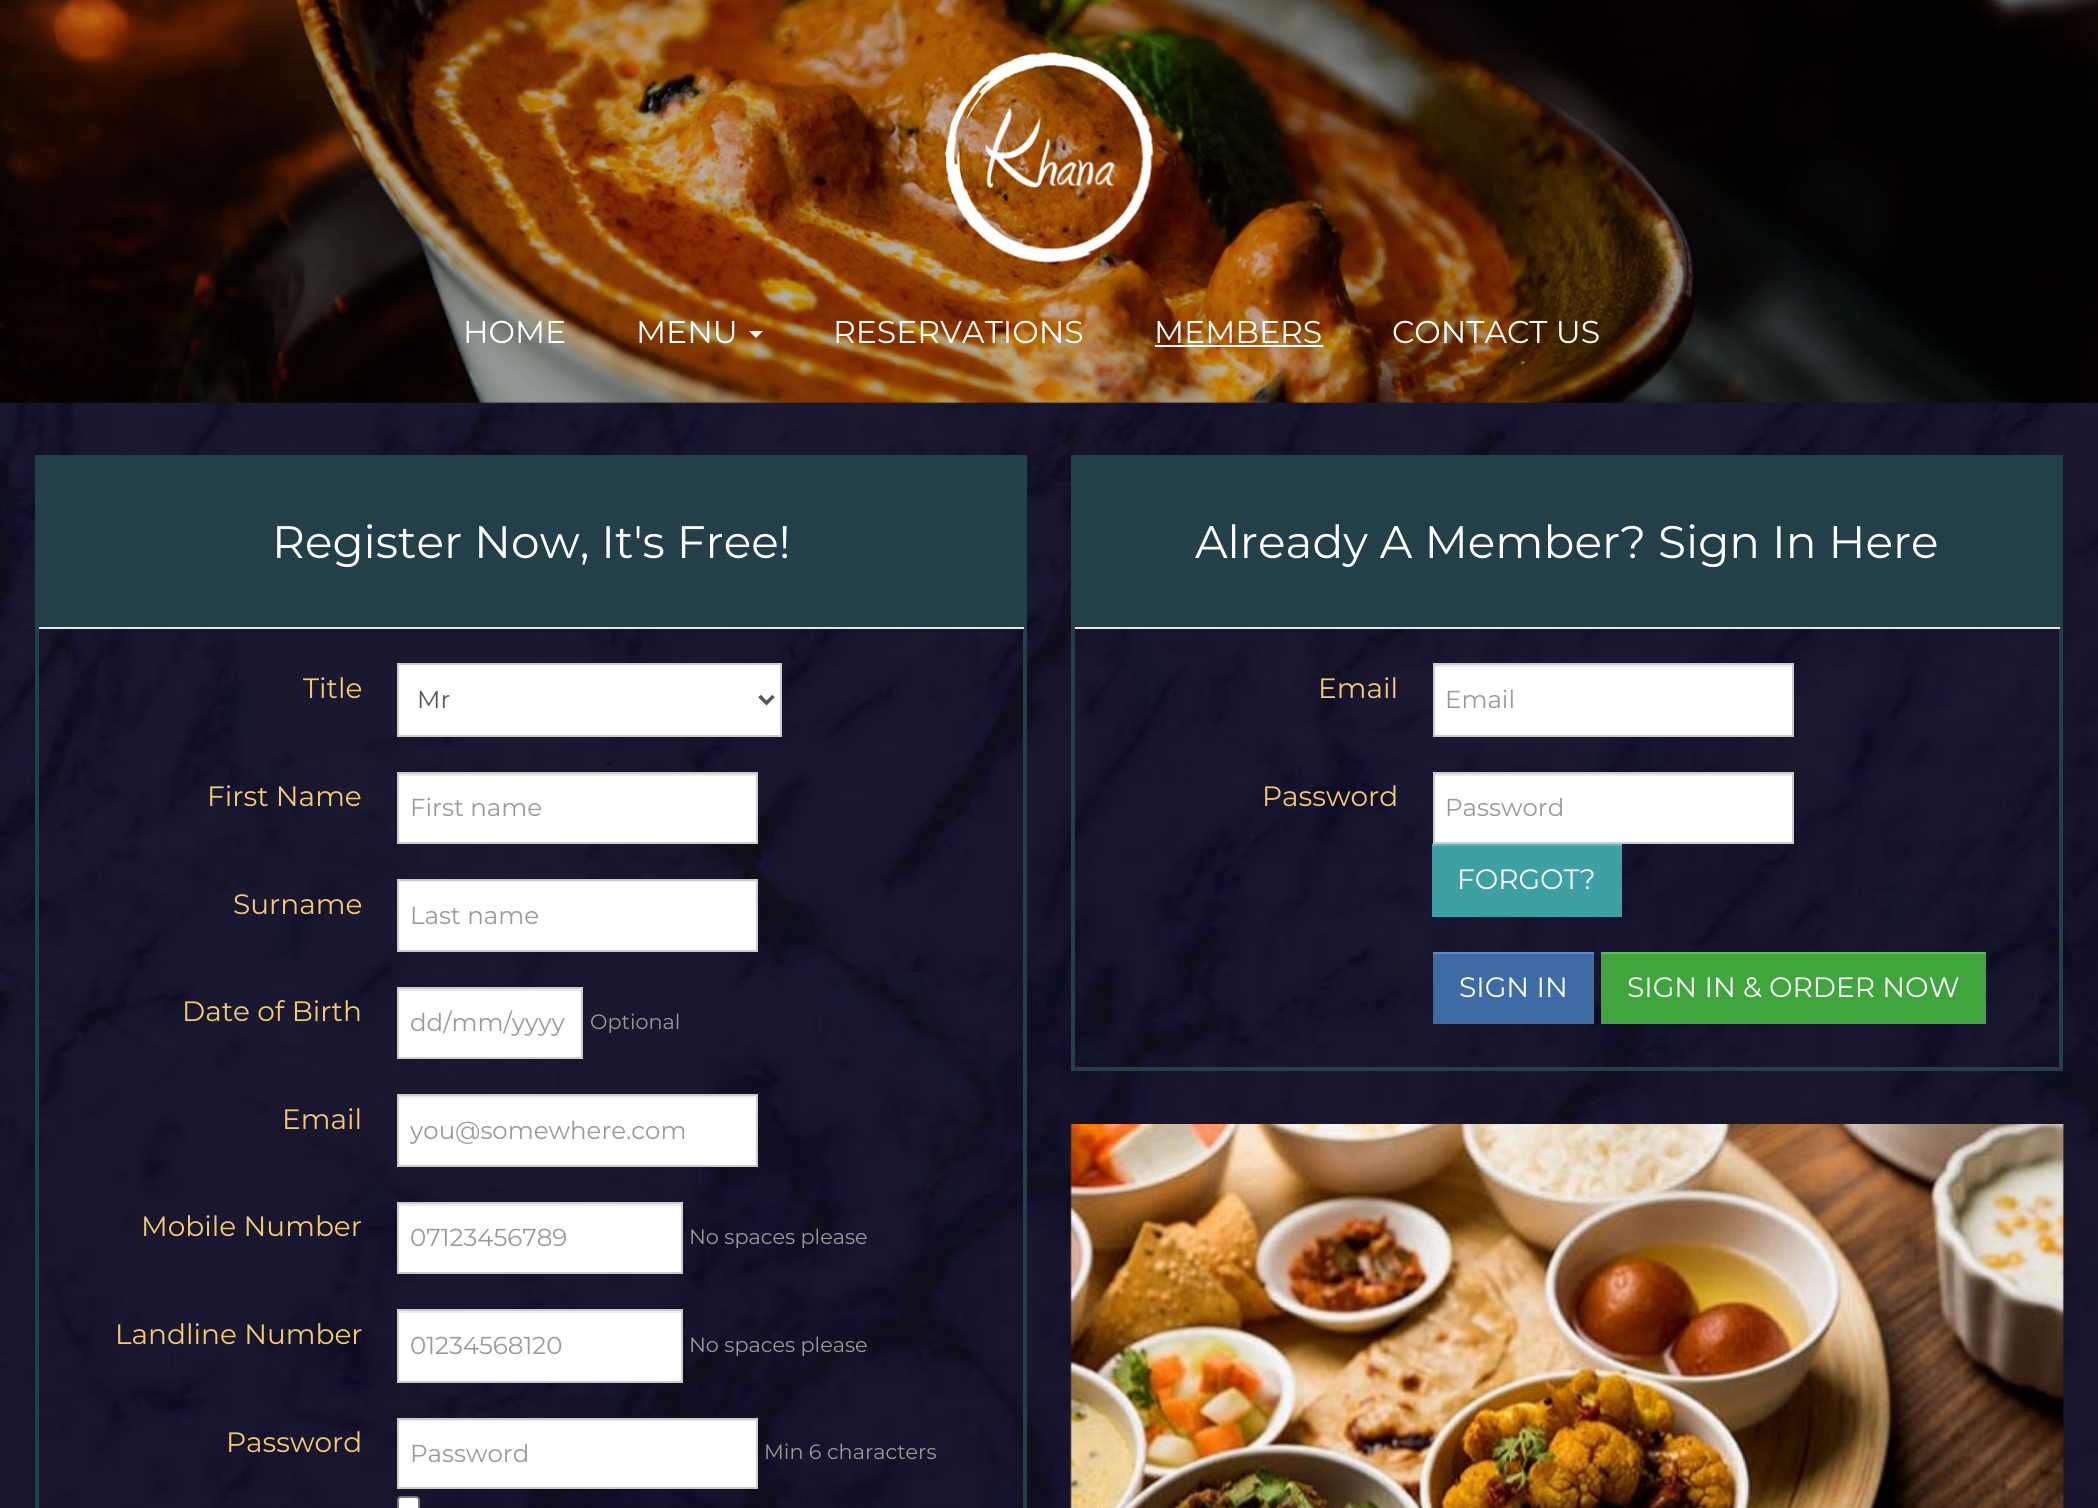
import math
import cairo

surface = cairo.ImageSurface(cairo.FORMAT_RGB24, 2098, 1508)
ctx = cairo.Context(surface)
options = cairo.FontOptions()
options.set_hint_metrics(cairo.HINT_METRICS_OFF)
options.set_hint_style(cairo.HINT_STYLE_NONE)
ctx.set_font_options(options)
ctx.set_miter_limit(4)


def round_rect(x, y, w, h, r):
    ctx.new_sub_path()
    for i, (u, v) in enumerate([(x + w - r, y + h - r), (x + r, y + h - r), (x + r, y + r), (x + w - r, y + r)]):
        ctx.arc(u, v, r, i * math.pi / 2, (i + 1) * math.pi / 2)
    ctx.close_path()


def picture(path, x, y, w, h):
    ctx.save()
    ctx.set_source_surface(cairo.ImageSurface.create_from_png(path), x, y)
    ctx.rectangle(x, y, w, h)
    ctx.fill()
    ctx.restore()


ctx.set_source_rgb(1, 1, 1)
ctx.paint()
picture("img1.png", 0, 401, 2098, 1107)
picture("img2.png", 0, 0, 2098, 403)
picture("img3.png", 945, 52, 209, 211)
ctx.select_font_face("Montserrat Thin")
ctx.set_font_size(31.5)
ctx.set_source_rgb(1, 1, 1)
ctx.move_to(463, 343)
ctx.show_text("HOME")
ctx.move_to(636, 343)
ctx.show_text("MENU")
ctx.new_path()
ctx.move_to(749, 331)
ctx.line_to(763, 331)
ctx.line_to(756, 338)
ctx.close_path()
ctx.fill()
ctx.move_to(833, 343)
ctx.show_text("RESERVATIONS")
ctx.move_to(1154, 343)
ctx.show_text("MEMBERS")
ctx.rectangle(1155, 345, 168, 2)
ctx.fill()
ctx.move_to(1392, 343)
ctx.show_text("CONTACT US")
ctx.rectangle(37, 457, 988, 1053)
ctx.set_source_rgb(0.137, 0.247, 0.29)
ctx.set_line_width(4)
ctx.stroke()
ctx.rectangle(39, 459, 984, 168)
ctx.fill()
ctx.set_source_rgb(0.898, 0.898, 0.898)
ctx.rectangle(39, 627, 985, 2)
ctx.fill()
ctx.set_font_size(45.5)
ctx.set_source_rgb(1, 1, 1)
ctx.move_to(272, 558)
ctx.show_text("Register Now, It's Free!")
ctx.set_font_size(28)
ctx.set_source_rgb(0.957, 0.792, 0.435)
ctx.move_to(303, 698)
ctx.show_text("Title")
ctx.set_source_rgb(1, 1, 1)
ctx.rectangle(398, 664, 383, 72)
ctx.fill_preserve()
ctx.set_source_rgb(0.8, 0.8, 0.8)
ctx.set_line_width(2)
ctx.stroke()
ctx.new_path()
ctx.move_to(759.5, 696)
ctx.line_to(766.5, 703)
ctx.line_to(773.5, 696)
ctx.set_source_rgb(0.333, 0.333, 0.333)
ctx.set_line_width(3.5)
ctx.stroke()
ctx.set_font_size(24.5)
ctx.move_to(417, 708)
ctx.show_text("Mr")
ctx.set_font_size(28)
ctx.set_source_rgb(0.957, 0.792, 0.435)
ctx.move_to(207, 806)
ctx.show_text("First Name")
ctx.set_source_rgb(1, 1, 1)
ctx.rectangle(399, 776, 357, 66)
ctx.fill()
ctx.set_source_rgb(0.925, 0.925, 0.925)
ctx.rectangle(399, 774, 357, 2)
ctx.fill()
ctx.rectangle(398, 773, 359, 70)
ctx.set_source_rgb(0.8, 0.8, 0.8)
ctx.set_line_width(2)
ctx.stroke()
ctx.set_font_size(24.5)
ctx.set_source_rgb(0.6, 0.6, 0.6)
ctx.move_to(410, 816)
ctx.show_text("First name")
ctx.set_font_size(28)
ctx.set_source_rgb(0.957, 0.792, 0.435)
ctx.move_to(233, 914)
ctx.show_text("Surname")
ctx.set_source_rgb(1, 1, 1)
ctx.rectangle(399, 882, 357, 68)
ctx.fill()
ctx.set_source_rgb(0.925, 0.925, 0.925)
ctx.rectangle(399, 881, 357, 1)
ctx.fill()
ctx.rectangle(398, 880, 359, 71)
ctx.set_source_rgb(0.8, 0.8, 0.8)
ctx.stroke()
ctx.set_font_size(24.5)
ctx.set_source_rgb(0.6, 0.6, 0.6)
ctx.move_to(410, 924)
ctx.show_text("Last name")
ctx.set_font_size(28)
ctx.set_source_rgb(0.957, 0.792, 0.435)
ctx.move_to(182, 1021)
ctx.show_text("Date of Birth")
ctx.set_source_rgb(1, 1, 1)
ctx.rectangle(399, 991, 182, 66)
ctx.fill()
ctx.set_source_rgb(0.925, 0.925, 0.925)
ctx.rectangle(399, 989, 182, 2)
ctx.fill()
ctx.rectangle(398, 988, 184, 70)
ctx.set_source_rgb(0.8, 0.8, 0.8)
ctx.stroke()
ctx.set_font_size(24.5)
ctx.set_source_rgb(0.6, 0.6, 0.6)
ctx.move_to(410, 1031)
ctx.show_text("dd/mm/yyyy")
ctx.set_font_size(20.75)
ctx.move_to(590, 1029)
ctx.show_text("Optional")
ctx.set_font_size(28)
ctx.set_source_rgb(0.957, 0.792, 0.435)
ctx.move_to(282, 1129)
ctx.show_text("Email")
ctx.set_source_rgb(1, 1, 1)
ctx.rectangle(399, 1098, 357, 67)
ctx.fill()
ctx.set_source_rgb(0.925, 0.925, 0.925)
ctx.rectangle(399, 1096, 357, 2)
ctx.fill()
ctx.rectangle(398, 1095, 359, 71)
ctx.set_source_rgb(0.8, 0.8, 0.8)
ctx.stroke()
ctx.save()
ctx.rectangle(410, 1115, 336, 31)
ctx.clip()
ctx.set_font_size(24.5)
ctx.set_source_rgb(0.6, 0.6, 0.6)
ctx.move_to(410, 1139)
ctx.show_text("you@somewhere.com")
ctx.restore()
ctx.set_source_rgb(0.957, 0.792, 0.435)
ctx.move_to(141, 1236)
ctx.show_text("Mobile Number")
ctx.set_source_rgb(1, 1, 1)
ctx.rectangle(399, 1206, 282, 66)
ctx.fill()
ctx.set_source_rgb(0.925, 0.925, 0.925)
ctx.rectangle(399, 1204, 282, 2)
ctx.fill()
ctx.rectangle(398, 1203, 284, 70)
ctx.set_source_rgb(0.8, 0.8, 0.8)
ctx.stroke()
ctx.set_font_size(24.5)
ctx.set_source_rgb(0.6, 0.6, 0.6)
ctx.move_to(410, 1246)
ctx.show_text("07123456789")
ctx.set_font_size(20.75)
ctx.move_to(689, 1244)
ctx.show_text("No spaces please")
ctx.set_font_size(28)
ctx.set_source_rgb(0.957, 0.792, 0.435)
ctx.move_to(115, 1344)
ctx.show_text("Landline Number")
ctx.set_source_rgb(1, 1, 1)
ctx.rectangle(399, 1313, 282, 68)
ctx.fill()
ctx.set_source_rgb(0.925, 0.925, 0.925)
ctx.rectangle(399, 1311, 282, 2)
ctx.fill()
ctx.rectangle(398, 1310, 284, 72)
ctx.set_source_rgb(0.8, 0.8, 0.8)
ctx.stroke()
ctx.set_font_size(24.5)
ctx.set_source_rgb(0.6, 0.6, 0.6)
ctx.move_to(410, 1354)
ctx.show_text("01234568120")
ctx.set_font_size(20.75)
ctx.move_to(689, 1352)
ctx.show_text("No spaces please")
ctx.set_font_size(28)
ctx.set_source_rgb(0.957, 0.792, 0.435)
ctx.move_to(226, 1452)
ctx.show_text("Password")
ctx.set_source_rgb(1, 1, 1)
ctx.rectangle(399, 1421, 357, 66)
ctx.fill()
ctx.set_source_rgb(0.925, 0.925, 0.925)
ctx.rectangle(399, 1420, 357, 1)
ctx.fill()
ctx.rectangle(398, 1419, 359, 69)
ctx.set_source_rgb(0.8, 0.8, 0.8)
ctx.stroke()
ctx.set_font_size(24.5)
ctx.set_source_rgb(0.6, 0.6, 0.6)
ctx.move_to(410, 1462)
ctx.show_text("Password")
ctx.set_font_size(20.75)
ctx.move_to(764, 1459)
ctx.show_text("Min 6 characters")
ctx.set_source_rgb(1, 1, 1)
round_rect(398, 1497, 21, 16, 3)
ctx.fill_preserve()
ctx.set_source_rgb(0.463, 0.463, 0.463)
ctx.stroke()
ctx.rectangle(1073, 457, 988, 612)
ctx.set_source_rgb(0.137, 0.247, 0.29)
ctx.set_line_width(4)
ctx.stroke()
ctx.rectangle(1075, 459, 984, 168)
ctx.fill()
ctx.set_source_rgb(0.898, 0.898, 0.898)
ctx.rectangle(1075, 627, 985, 2)
ctx.fill()
ctx.set_font_size(45.5)
ctx.set_source_rgb(1, 1, 1)
ctx.move_to(1195, 558)
ctx.show_text("Already A Member? Sign In Here")
ctx.set_font_size(28)
ctx.set_source_rgb(0.957, 0.792, 0.435)
ctx.move_to(1318, 698)
ctx.show_text("Email")
ctx.set_source_rgb(1, 1, 1)
ctx.rectangle(1435, 667, 357, 68)
ctx.fill()
ctx.set_source_rgb(0.925, 0.925, 0.925)
ctx.rectangle(1435, 665, 357, 2)
ctx.fill()
ctx.rectangle(1434, 664, 359, 72)
ctx.set_source_rgb(0.8, 0.8, 0.8)
ctx.set_line_width(2)
ctx.stroke()
ctx.set_font_size(24.5)
ctx.set_source_rgb(0.6, 0.6, 0.6)
ctx.move_to(1445, 708)
ctx.show_text("Email")
ctx.set_font_size(28)
ctx.set_source_rgb(0.957, 0.792, 0.435)
ctx.move_to(1262, 806)
ctx.show_text("Password")
ctx.set_source_rgb(1, 1, 1)
ctx.rectangle(1435, 776, 357, 66)
ctx.fill()
ctx.set_source_rgb(0.925, 0.925, 0.925)
ctx.rectangle(1435, 774, 357, 2)
ctx.fill()
ctx.rectangle(1434, 773, 359, 70)
ctx.set_source_rgb(0.8, 0.8, 0.8)
ctx.stroke()
ctx.set_font_size(24.5)
ctx.set_source_rgb(0.6, 0.6, 0.6)
ctx.move_to(1445, 816)
ctx.show_text("Password")
ctx.set_source_rgb(0.239, 0.627, 0.647)
ctx.rectangle(1432, 846, 190, 71)
ctx.fill()
ctx.set_source_rgb(0.392, 0.702, 0.718)
ctx.rectangle(1432, 844, 190, 2)
ctx.fill()
ctx.set_font_size(28)
ctx.set_source_rgb(1, 1, 1)
ctx.move_to(1457, 889)
ctx.show_text("FORGOT?")
ctx.set_source_rgb(0.239, 0.42, 0.647)
ctx.rectangle(1433, 954, 161, 70)
ctx.fill()
ctx.set_source_rgb(0.392, 0.537, 0.718)
ctx.rectangle(1433, 952, 161, 2)
ctx.fill()
ctx.set_source_rgb(1, 1, 1)
ctx.move_to(1459, 997)
ctx.show_text("SIGN IN")
ctx.set_source_rgb(0.251, 0.647, 0.239)
ctx.rectangle(1601, 954, 385, 70)
ctx.fill()
ctx.set_source_rgb(0.4, 0.718, 0.392)
ctx.rectangle(1601, 952, 385, 2)
ctx.fill()
ctx.set_source_rgb(1, 1, 1)
ctx.move_to(1627, 997)
ctx.show_text("SIGN IN & ORDER NOW")
picture("img4.png", 1070, 1124, 994, 384)
surface.write_to_png("page.png")
